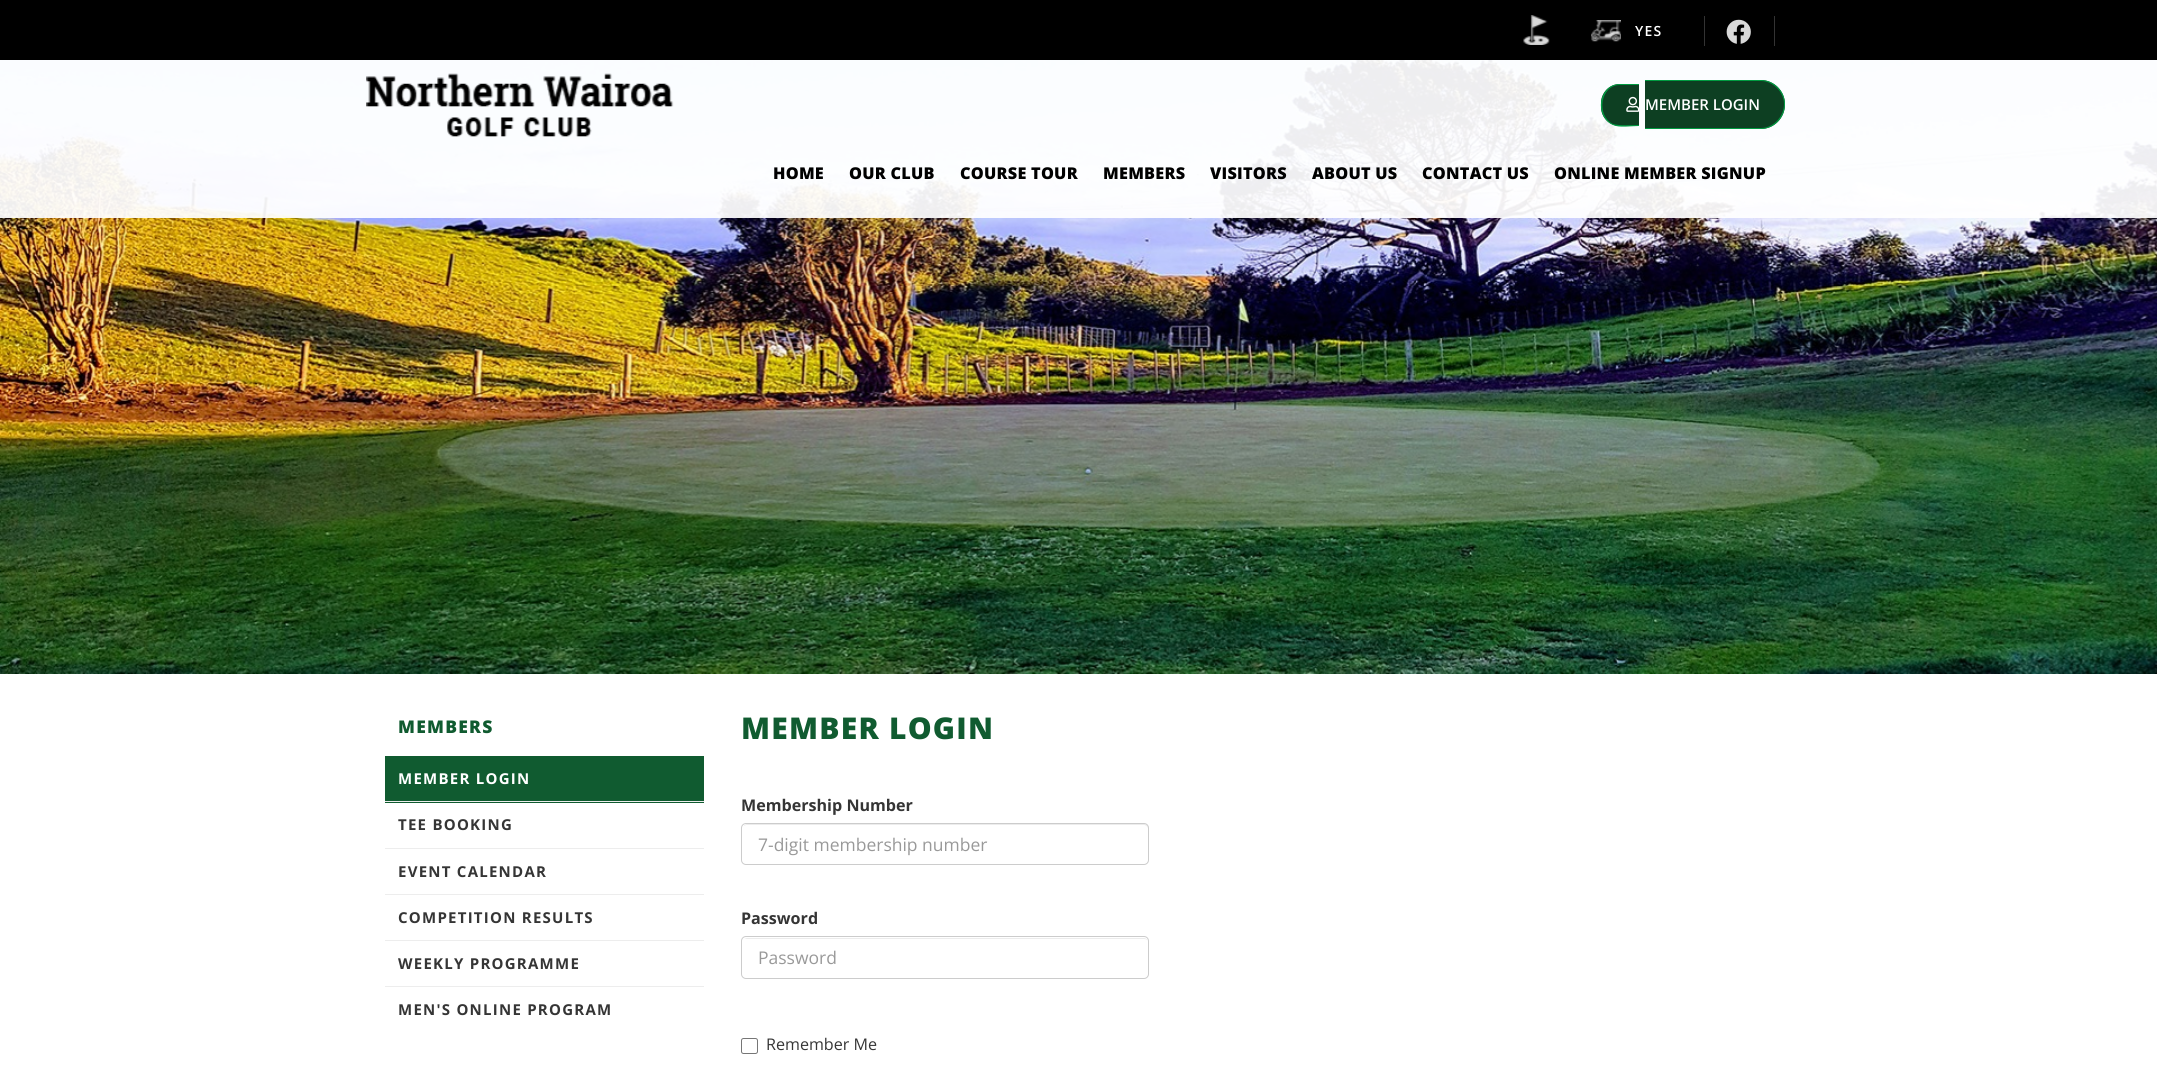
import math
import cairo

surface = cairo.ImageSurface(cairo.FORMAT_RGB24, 2157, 1076)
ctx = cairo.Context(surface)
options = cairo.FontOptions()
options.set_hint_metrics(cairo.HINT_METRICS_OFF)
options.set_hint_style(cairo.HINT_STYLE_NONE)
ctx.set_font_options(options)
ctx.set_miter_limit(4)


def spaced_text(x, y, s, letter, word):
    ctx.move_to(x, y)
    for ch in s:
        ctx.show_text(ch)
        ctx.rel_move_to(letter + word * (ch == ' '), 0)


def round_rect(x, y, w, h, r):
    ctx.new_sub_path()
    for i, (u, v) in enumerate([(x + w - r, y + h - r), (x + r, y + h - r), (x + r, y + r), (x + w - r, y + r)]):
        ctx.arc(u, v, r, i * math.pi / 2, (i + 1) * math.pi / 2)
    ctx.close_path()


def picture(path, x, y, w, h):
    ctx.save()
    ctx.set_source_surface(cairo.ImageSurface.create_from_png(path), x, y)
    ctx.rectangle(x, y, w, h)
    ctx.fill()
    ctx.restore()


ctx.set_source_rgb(1, 1, 1)
ctx.paint()
picture("img6.png", 0, 60, 2157, 614)
ctx.set_source_rgba(1, 1, 1, 0.93)
ctx.rectangle(0, 60, 2157, 158)
ctx.fill()
ctx.set_source_rgb(0, 0, 0)
ctx.rectangle(0, 0, 2157, 60)
ctx.fill()
picture("img1.png", 1523, 15, 27, 30)
picture("img2.png", 1591, 20, 30, 22)
ctx.select_font_face("Open Sans SemiBold")
ctx.set_font_size(14)
ctx.set_source_rgb(1, 1, 1)
spaced_text(1635, 36, "YES", 1.25, 0)
ctx.set_source_rgb(0.2, 0.2, 0.2)
ctx.rectangle(1704, 16, 1, 30)
ctx.fill()
picture("img3.png", 1726, 19, 25, 25)
ctx.rectangle(1774, 16, 1, 30)
ctx.fill()
picture("img4.png", 366, 73, 308, 64)
ctx.set_source_rgb(0.051, 0.247, 0.133)
ctx.new_path()
ctx.move_to(1620, 84)
ctx.line_to(1639, 84)
ctx.line_to(1639, 126)
ctx.line_to(1620, 126)
ctx.curve_to(1609.5, 126, 1601, 117.5, 1601, 107)
ctx.line_to(1601, 103)
ctx.curve_to(1601, 92.5, 1609.5, 84, 1620, 84)
ctx.close_path()
ctx.fill()
ctx.set_source_rgb(0, 0.608, 0.255)
ctx.set_fill_rule(cairo.FILL_RULE_EVEN_ODD)
ctx.new_path()
ctx.move_to(1620, 84)
ctx.line_to(1639, 84)
ctx.line_to(1639, 126)
ctx.curve_to(1631, 126, 1619, 128, 1613, 125)
ctx.curve_to(1594, 117, 1598, 84, 1620, 84)
ctx.close_path()
ctx.move_to(1620, 85)
ctx.line_to(1639, 85)
ctx.line_to(1639, 125)
ctx.curve_to(1632, 125, 1620, 126, 1613, 124)
ctx.curve_to(1596, 116, 1600, 85, 1620, 85)
ctx.close_path()
ctx.fill()
ctx.set_source_rgb(0.051, 0.247, 0.133)
ctx.new_path()
ctx.move_to(1645, 80)
ctx.line_to(1760.5, 80)
ctx.curve_to(1774, 80, 1785, 91, 1785, 104.5)
ctx.curve_to(1785, 118, 1774, 129, 1760.5, 129)
ctx.line_to(1645, 129)
ctx.close_path()
ctx.fill()
ctx.set_source_rgb(0, 0.608, 0.255)
ctx.new_path()
ctx.move_to(1645, 80)
ctx.line_to(1761, 80)
ctx.curve_to(1774, 80, 1785, 91, 1785, 104)
ctx.curve_to(1785, 118, 1774, 129, 1761, 129)
ctx.line_to(1645, 129)
ctx.close_path()
ctx.move_to(1645, 81)
ctx.line_to(1761, 81)
ctx.curve_to(1773, 81, 1784, 92, 1784, 104)
ctx.curve_to(1784, 117, 1773, 128, 1761, 128)
ctx.line_to(1645, 128)
ctx.close_path()
ctx.fill()
picture("img5.png", 1626, 96, 13, 16)
ctx.set_font_size(15)
ctx.set_source_rgb(1, 1, 1)
ctx.move_to(1645, 110)
ctx.show_text("MEMBER LOGIN")
ctx.select_font_face("Open Sans ExtraBold")
ctx.set_font_size(16.25)
ctx.set_source_rgb(0, 0, 0)
spaced_text(773, 179, "HOME", 0.25, 0)
spaced_text(849, 179, "OUR CLUB", 0.25, 0)
spaced_text(960, 179, "COURSE TOUR", 0.25, 0)
spaced_text(1103, 179, "MEMBERS", 0.25, 0)
spaced_text(1210, 179, "VISITORS", 0.25, 0)
spaced_text(1312, 179, "ABOUT US", 0.25, 0)
spaced_text(1422, 179, "CONTACT US", 0.25, 0)
spaced_text(1554, 179, "ONLINE MEMBER SIGNUP", 0.25, 0)
ctx.set_font_size(17.5)
ctx.set_source_rgb(0.063, 0.357, 0.188)
spaced_text(398, 733, "MEMBERS", 1.25, 0)
ctx.rectangle(385, 756, 319, 47)
ctx.fill()
ctx.set_source_rgb(0.929, 0.929, 0.929)
ctx.rectangle(385, 801, 319, 1)
ctx.fill()
ctx.select_font_face("Open Sans", cairo.FONT_SLANT_NORMAL, cairo.FONT_WEIGHT_BOLD)
ctx.set_font_size(15)
ctx.set_source_rgb(1, 1, 1)
spaced_text(398, 784, "MEMBER LOGIN", 1.25, 0)
ctx.set_source_rgb(0.929, 0.929, 0.929)
ctx.rectangle(385, 848, 319, 1)
ctx.fill()
ctx.set_source_rgb(0.208, 0.208, 0.208)
spaced_text(398, 830, "TEE BOOKING", 1.25, 0)
ctx.set_source_rgb(0.929, 0.929, 0.929)
ctx.rectangle(385, 894, 319, 1)
ctx.fill()
ctx.set_source_rgb(0.208, 0.208, 0.208)
spaced_text(398, 877, "EVENT CALENDAR", 1.25, 0)
ctx.set_source_rgb(0.929, 0.929, 0.929)
ctx.rectangle(385, 940, 319, 1)
ctx.fill()
ctx.set_source_rgb(0.208, 0.208, 0.208)
spaced_text(398, 923, "COMPETITION RESULTS", 1.25, 0)
ctx.set_source_rgb(0.929, 0.929, 0.929)
ctx.rectangle(385, 986, 319, 1)
ctx.fill()
ctx.set_source_rgb(0.208, 0.208, 0.208)
spaced_text(398, 969, "WEEKLY PROGRAMME", 1.25, 0)
spaced_text(398, 1015, "MEN'S ONLINE PROGRAM", 1.25, 0)
ctx.select_font_face("Open Sans ExtraBold")
ctx.set_font_size(30)
ctx.set_source_rgb(0.063, 0.357, 0.188)
spaced_text(741, 739, "MEMBER LOGIN", 1.25, 0)
ctx.select_font_face("Open Sans", cairo.FONT_SLANT_NORMAL, cairo.FONT_WEIGHT_BOLD)
ctx.set_font_size(16.1)
ctx.set_source_rgb(0.208, 0.208, 0.208)
ctx.move_to(741, 811)
ctx.show_text("Membership Number")
ctx.set_source_rgb(0.925, 0.925, 0.925)
ctx.set_fill_rule(cairo.FILL_RULE_WINDING)
ctx.new_path()
ctx.move_to(746, 825)
ctx.line_to(1144, 825)
ctx.curve_to(1146, 825, 1148, 827, 1148, 829)
ctx.line_to(1148, 828)
ctx.curve_to(1148, 826, 1146, 824, 1144, 824)
ctx.line_to(747, 824)
ctx.curve_to(746, 824, 744, 825, 744, 826)
ctx.close_path()
ctx.fill()
round_rect(741.5, 823.5, 407, 41, 4.5)
ctx.set_source_rgb(0.8, 0.8, 0.8)
ctx.set_line_width(1)
ctx.stroke()
ctx.select_font_face("Open Sans")
ctx.set_font_size(17.5)
ctx.set_source_rgb(0.6, 0.6, 0.6)
ctx.move_to(758, 851)
ctx.show_text("7-digit membership number")
ctx.select_font_face("Open Sans", cairo.FONT_SLANT_NORMAL, cairo.FONT_WEIGHT_BOLD)
ctx.set_font_size(16.1)
ctx.set_source_rgb(0.208, 0.208, 0.208)
ctx.move_to(741, 924)
ctx.show_text("Password")
ctx.set_source_rgb(0.925, 0.925, 0.925)
ctx.new_path()
ctx.move_to(746, 939)
ctx.line_to(1144, 939)
ctx.curve_to(1146, 939, 1148, 940, 1148, 942)
ctx.curve_to(1148, 940, 1146, 938, 1144, 938)
ctx.line_to(747, 938)
ctx.curve_to(746, 938, 745, 939, 744, 939)
ctx.close_path()
ctx.fill()
round_rect(741.5, 936.5, 407, 42, 4.5)
ctx.set_source_rgb(0.8, 0.8, 0.8)
ctx.stroke()
ctx.select_font_face("Open Sans")
ctx.set_font_size(17.5)
ctx.set_source_rgb(0.6, 0.6, 0.6)
ctx.move_to(758, 964)
ctx.show_text("Password")
round_rect(741.5, 1038.5, 16, 15, 2)
ctx.set_source_rgb(0.463, 0.463, 0.463)
ctx.stroke()
ctx.set_font_size(16.1)
ctx.set_source_rgb(0.208, 0.208, 0.208)
ctx.move_to(766, 1050)
ctx.show_text("Remember Me")
surface.write_to_png("page.png")
